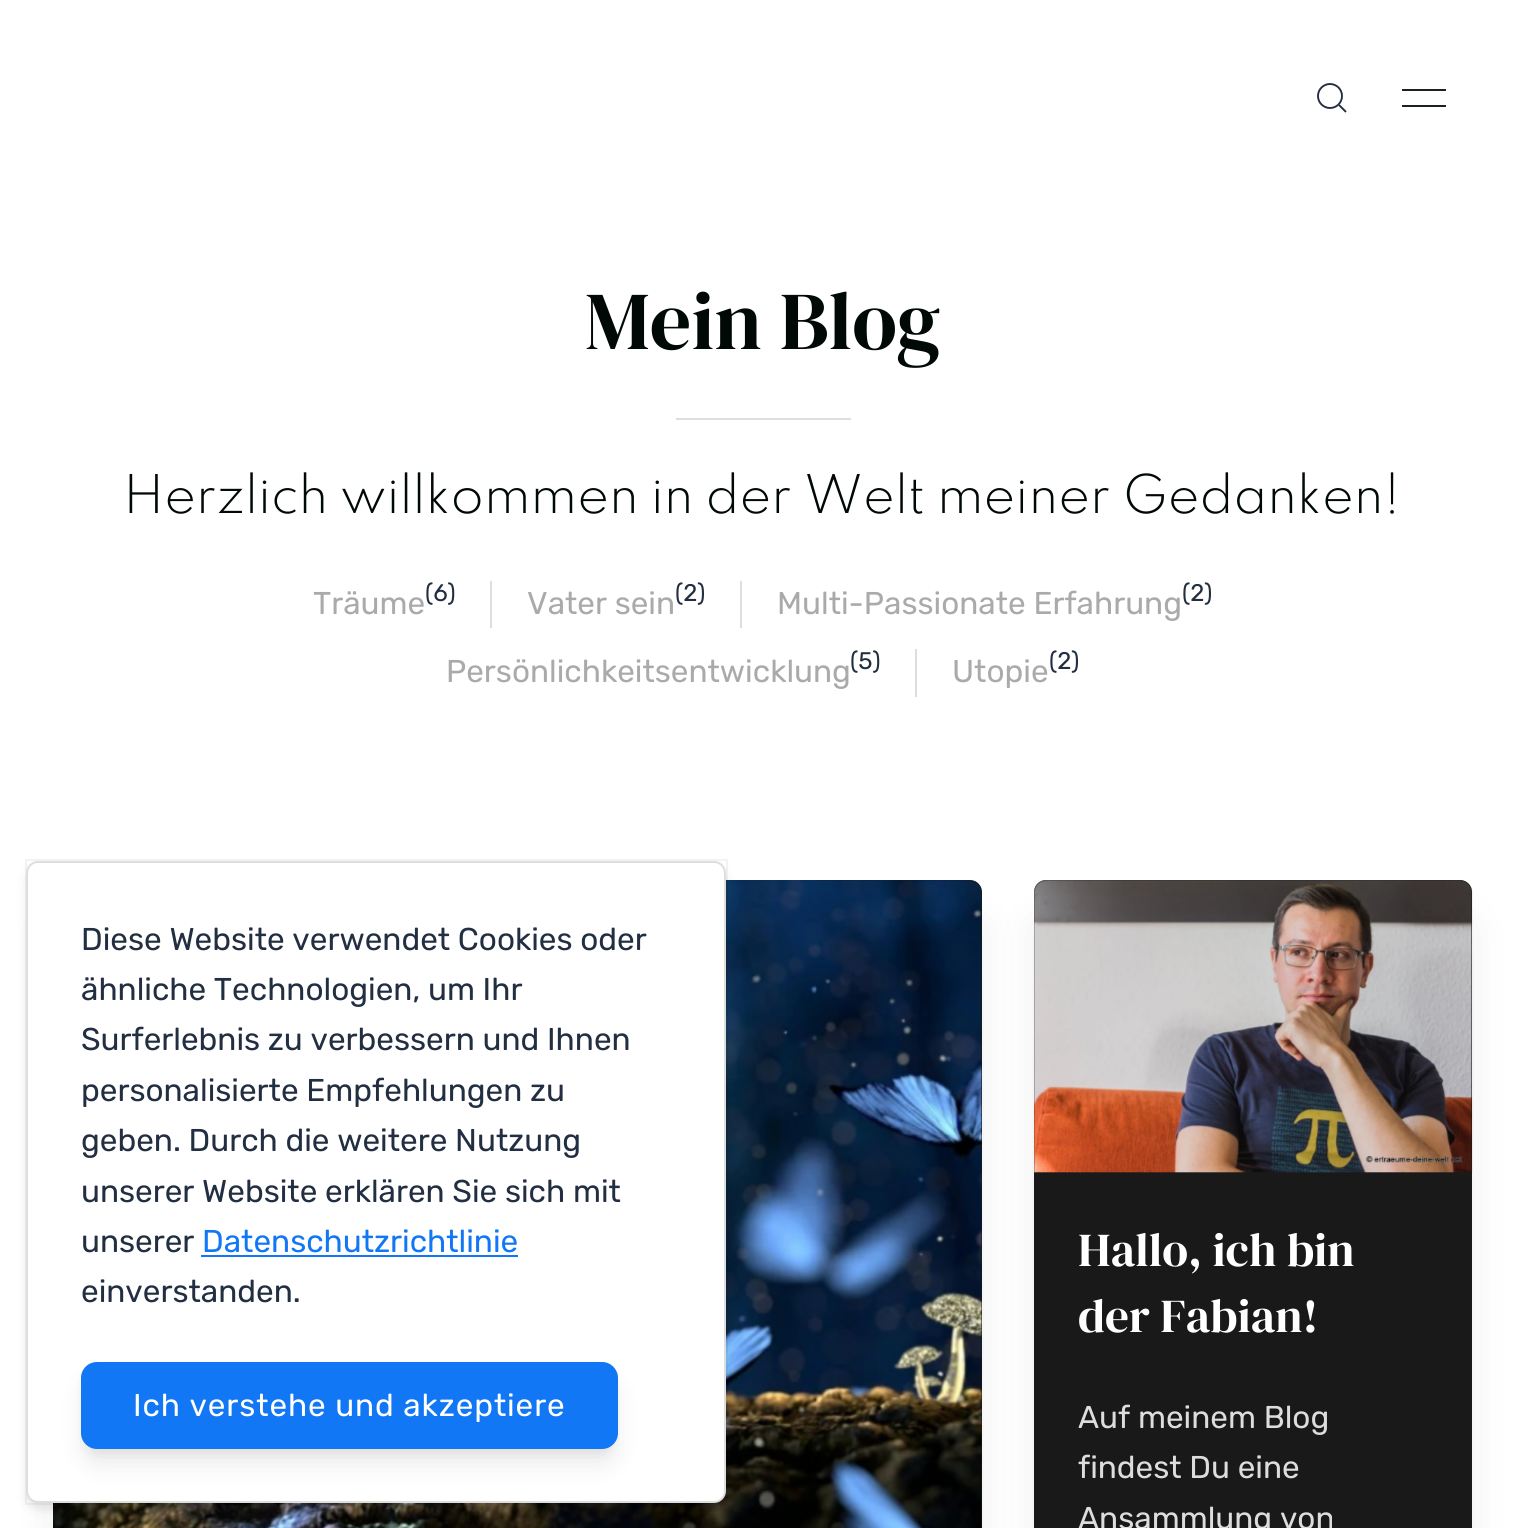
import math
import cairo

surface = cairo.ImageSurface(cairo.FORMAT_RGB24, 1523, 1528)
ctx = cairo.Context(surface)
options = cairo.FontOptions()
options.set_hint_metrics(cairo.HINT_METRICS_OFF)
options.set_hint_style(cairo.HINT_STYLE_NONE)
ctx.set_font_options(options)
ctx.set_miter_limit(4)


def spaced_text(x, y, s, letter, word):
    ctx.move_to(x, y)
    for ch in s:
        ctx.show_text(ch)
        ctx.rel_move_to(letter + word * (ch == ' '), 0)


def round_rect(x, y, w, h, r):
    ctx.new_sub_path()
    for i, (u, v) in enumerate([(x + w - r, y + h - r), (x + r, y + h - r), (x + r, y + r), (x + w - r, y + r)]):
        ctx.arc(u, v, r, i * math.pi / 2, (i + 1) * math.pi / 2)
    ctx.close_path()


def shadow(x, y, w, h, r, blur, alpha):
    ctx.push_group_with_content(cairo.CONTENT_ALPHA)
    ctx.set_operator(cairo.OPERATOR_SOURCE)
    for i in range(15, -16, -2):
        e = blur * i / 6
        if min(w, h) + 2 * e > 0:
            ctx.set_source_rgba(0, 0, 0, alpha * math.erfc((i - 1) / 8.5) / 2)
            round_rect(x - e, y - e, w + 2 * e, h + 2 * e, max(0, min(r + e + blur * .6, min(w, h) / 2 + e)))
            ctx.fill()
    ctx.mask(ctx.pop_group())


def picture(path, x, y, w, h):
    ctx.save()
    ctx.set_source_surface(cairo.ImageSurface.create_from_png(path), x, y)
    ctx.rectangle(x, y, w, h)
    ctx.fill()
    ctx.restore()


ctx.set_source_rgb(1, 1, 1)
ctx.paint()
ctx.arc(1330, 96, 12, 0, 2 * math.pi)
ctx.set_source_rgb(0.133, 0.18, 0.255)
ctx.set_line_width(1.9)
ctx.stroke()
ctx.new_path()
ctx.move_to(1339, 105)
ctx.line_to(1346, 112)
ctx.close_path()
ctx.stroke()
ctx.set_source_rgb(0.102, 0.137, 0.118)
ctx.rectangle(1402, 89, 44, 2)
ctx.fill()
ctx.rectangle(1402, 105, 44, 2)
ctx.fill()
ctx.select_font_face("DM Serif Display")
ctx.set_font_size(82)
ctx.set_source_rgb(0, 0.039, 0.02)
ctx.move_to(585, 349)
ctx.show_text("Mein Blog")
ctx.set_source_rgb(0.871, 0.871, 0.871)
ctx.rectangle(676, 418, 175, 2)
ctx.fill()
ctx.select_font_face("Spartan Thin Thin")
ctx.set_font_size(47.25)
ctx.set_source_rgb(0, 0.039, 0.02)
ctx.move_to(123, 513)
ctx.show_text("Herzlich willkommen in der Welt meiner Gedanken!")
ctx.select_font_face("Rubik")
ctx.set_font_size(31.5)
ctx.set_source_rgb(0.667, 0.667, 0.667)
ctx.move_to(313, 614)
ctx.show_text("Träume")
ctx.set_font_size(24)
ctx.set_source_rgb(0.133, 0.18, 0.255)
ctx.move_to(425, 601)
ctx.show_text("(6)")
ctx.set_source_rgb(0.871, 0.871, 0.871)
ctx.rectangle(490, 581, 2, 47)
ctx.fill()
ctx.set_font_size(31.5)
ctx.set_source_rgb(0.667, 0.667, 0.667)
ctx.move_to(527, 614)
ctx.show_text("Vater sein")
ctx.set_font_size(24)
ctx.set_source_rgb(0.133, 0.18, 0.255)
ctx.move_to(675, 601)
ctx.show_text("(2)")
ctx.set_source_rgb(0.871, 0.871, 0.871)
ctx.rectangle(740, 581, 2, 47)
ctx.fill()
ctx.set_font_size(31.5)
ctx.set_source_rgb(0.667, 0.667, 0.667)
ctx.move_to(777, 614)
ctx.show_text("Multi-Passionate Erfahrung")
ctx.set_font_size(24)
ctx.set_source_rgb(0.133, 0.18, 0.255)
ctx.move_to(1182, 601)
ctx.show_text("(2)")
ctx.set_font_size(31.5)
ctx.set_source_rgb(0.667, 0.667, 0.667)
ctx.move_to(446, 682)
ctx.show_text("Persönlichkeitsentwicklung")
ctx.set_font_size(24)
ctx.set_source_rgb(0.133, 0.18, 0.255)
ctx.move_to(850, 669)
ctx.show_text("(5)")
ctx.set_source_rgb(0.871, 0.871, 0.871)
ctx.rectangle(915, 649, 2, 48)
ctx.fill()
ctx.set_font_size(31.5)
ctx.set_source_rgb(0.667, 0.667, 0.667)
ctx.move_to(952, 682)
ctx.show_text("Utopie")
ctx.set_font_size(24)
ctx.set_source_rgb(0.133, 0.18, 0.255)
ctx.move_to(1049, 669)
ctx.show_text("(2)")
ctx.set_source_rgb(0, 0, 0)
shadow(61, 924, 912, 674, 4, 22, 0.1)
ctx.set_source_rgb(0.098, 0.098, 0.098)
round_rect(53, 880, 929, 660, 12)
ctx.fill()
picture("img1.png", 53, 880, 929, 648)
ctx.set_source_rgb(0, 0, 0)
shadow(1043, 924, 420, 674, 4, 22, 0.1)
ctx.set_source_rgb(0.098, 0.098, 0.098)
round_rect(1034, 880, 438, 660, 12)
ctx.fill()
picture("img2.png", 1034, 880, 439, 293)
ctx.select_font_face("DM Serif Display")
ctx.set_font_size(47.25)
ctx.set_source_rgb(1, 1, 1)
ctx.move_to(1078, 1266)
ctx.show_text("Hallo, ich bin")
ctx.move_to(1078, 1332)
ctx.show_text("der Fabian!")
ctx.select_font_face("Rubik")
ctx.set_font_size(31.5)
ctx.set_source_rgb(0.867, 0.867, 0.867)
ctx.move_to(1078, 1428)
ctx.show_text("Auf meinem Blog")
ctx.move_to(1078, 1478)
ctx.show_text("findest Du eine")
ctx.move_to(1078, 1529)
ctx.show_text("Ansammlung von")
ctx.set_source_rgb(0, 0, 0)
shadow(26, 868, 700, 642, 12, 5, 0.09)
ctx.rectangle(26, 860, 701, 644)
ctx.set_source_rgba(0, 0, 0, 0.05)
ctx.set_line_width(2)
ctx.stroke()
ctx.set_source_rgb(1, 1, 1)
round_rect(27, 862, 698, 640, 11)
ctx.fill_preserve()
ctx.set_source_rgb(0.871, 0.871, 0.871)
ctx.stroke()
ctx.set_source_rgb(0.133, 0.18, 0.255)
ctx.move_to(81, 950)
ctx.show_text("Diese Website verwendet Cookies oder")
ctx.move_to(81, 1000)
ctx.show_text("ähnliche Technologien, um Ihr")
ctx.move_to(81, 1050)
ctx.show_text("Surferlebnis zu verbessern und Ihnen")
ctx.move_to(81, 1101)
ctx.show_text("personalisierte Empfehlungen zu")
ctx.move_to(81, 1151)
ctx.show_text("geben. Durch die weitere Nutzung")
ctx.move_to(81, 1202)
ctx.show_text("unserer Website erklären Sie sich mit")
ctx.move_to(81, 1252)
ctx.show_text("unserer")
ctx.set_source_rgb(0.067, 0.467, 0.957)
ctx.move_to(202, 1252)
ctx.show_text("Datenschutzrichtlinie")
ctx.rectangle(201, 1255, 317, 2)
ctx.fill()
ctx.set_source_rgb(0.133, 0.18, 0.255)
ctx.move_to(81, 1302)
ctx.show_text("einverstanden.")
ctx.set_source_rgb(0, 0, 0)
shadow(84, 1372, 530, 81, 12, 5, 0.05)
shadow(86, 1384, 527, 77, 11, 13, 0.1)
ctx.set_source_rgb(0.067, 0.467, 0.957)
round_rect(81, 1362, 537, 87, 16)
ctx.fill()
ctx.set_source_rgb(1, 1, 1)
spaced_text(133, 1416, "Ich verstehe und akzeptiere", 0.9, 0)
surface.write_to_png("page.png")
